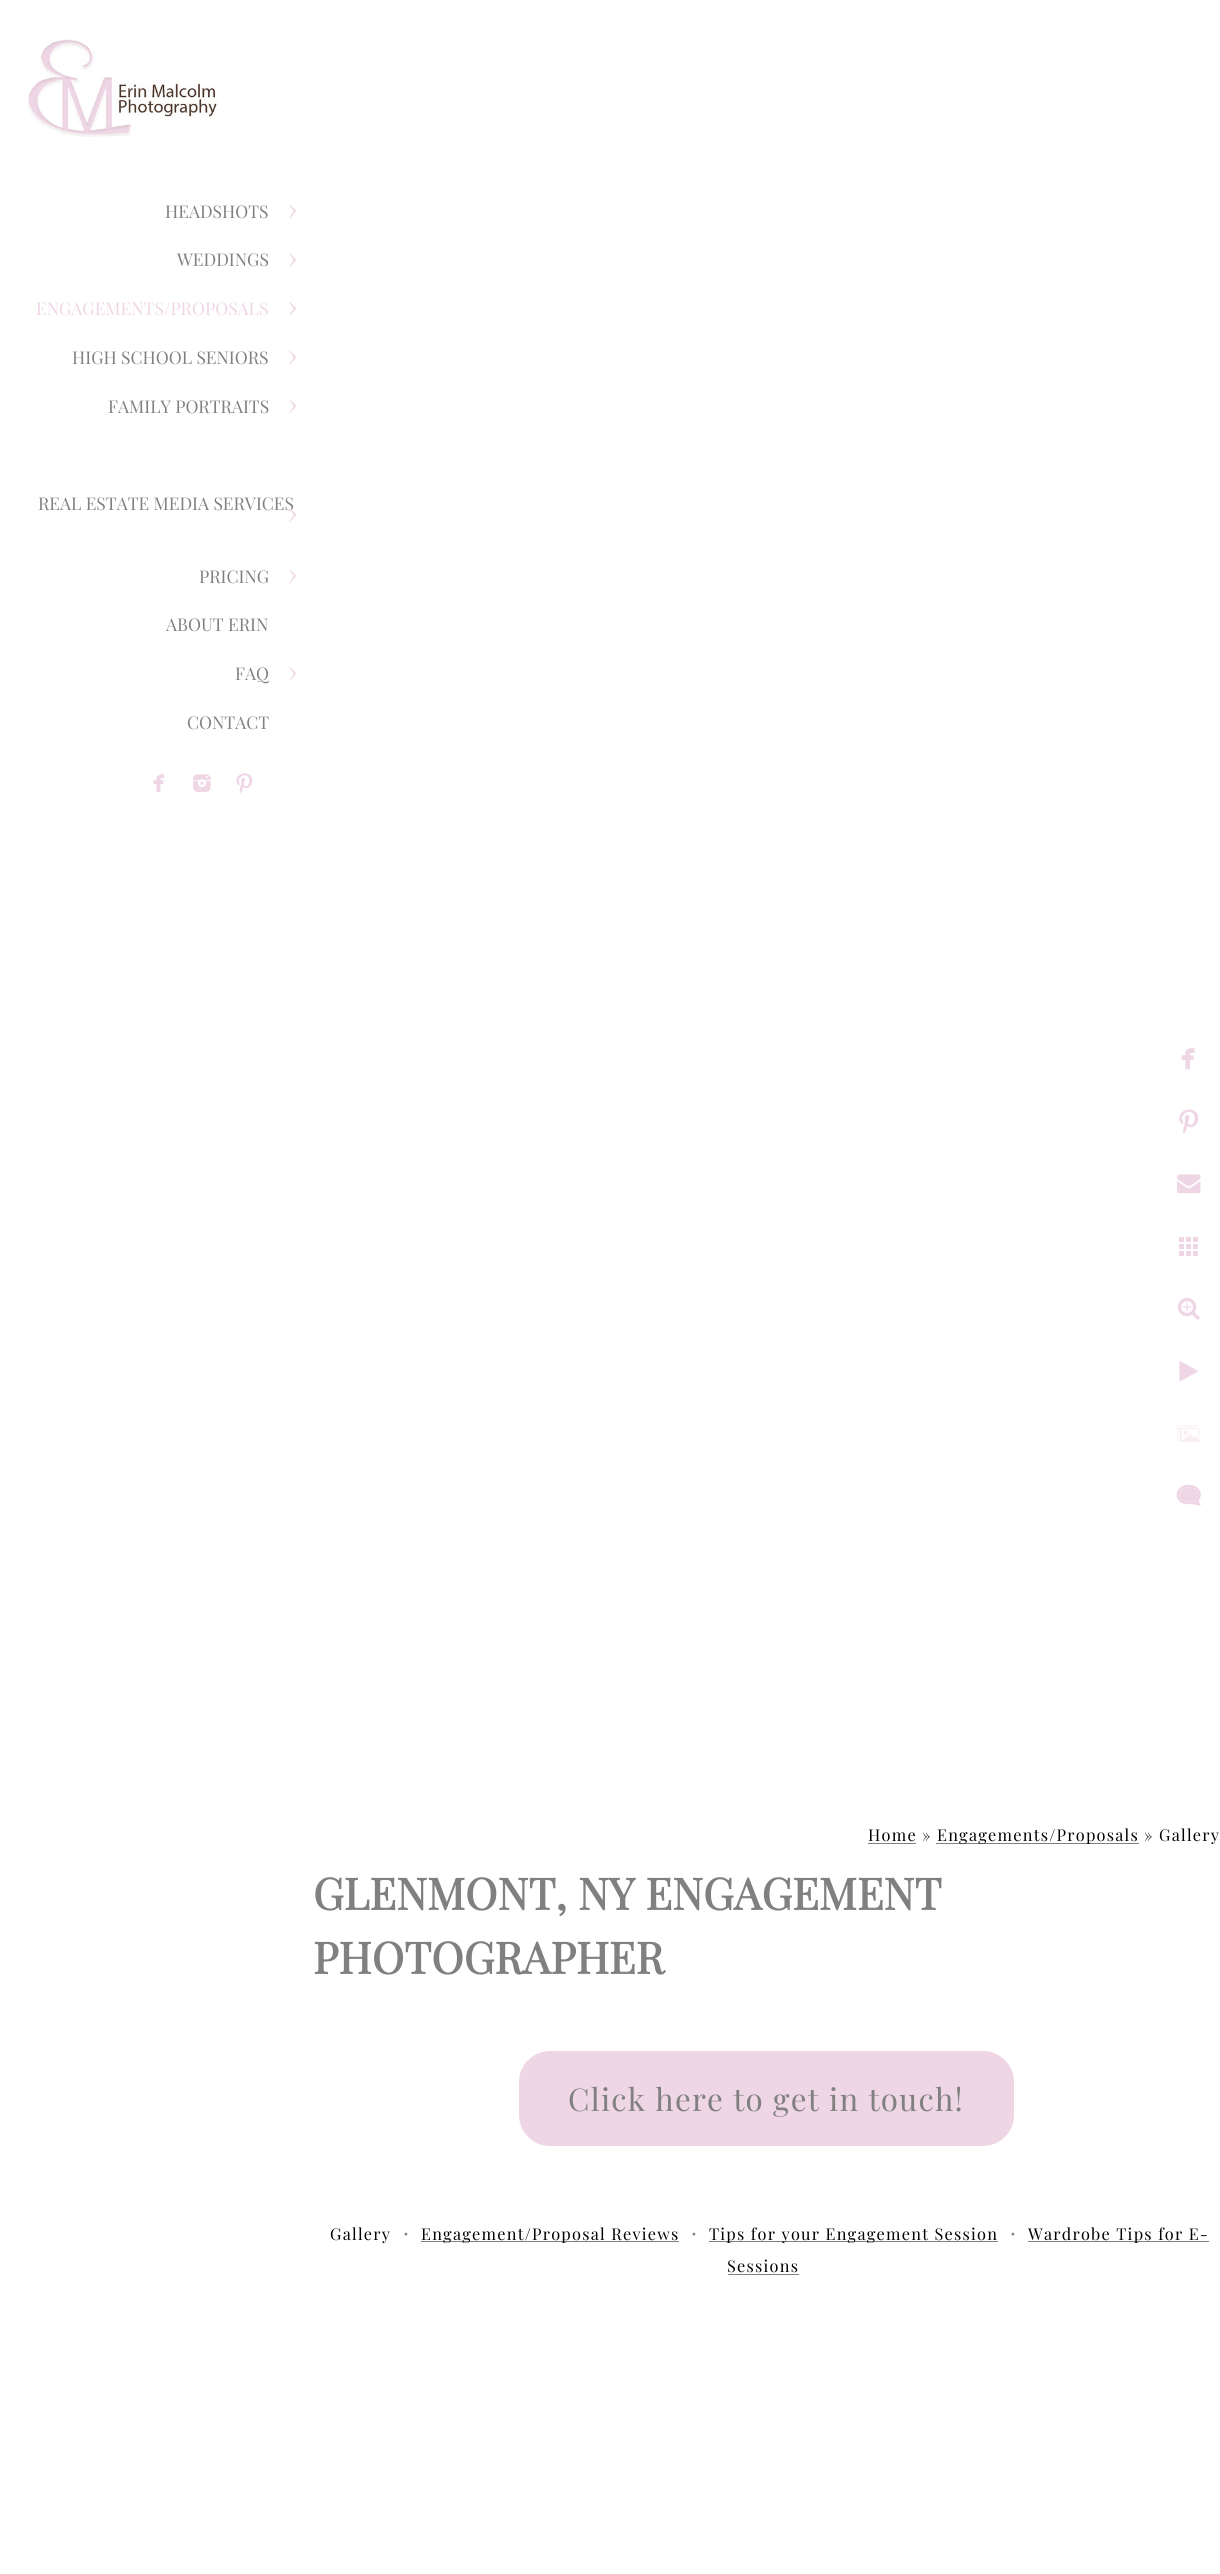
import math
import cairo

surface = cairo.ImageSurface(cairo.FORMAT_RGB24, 1220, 2574)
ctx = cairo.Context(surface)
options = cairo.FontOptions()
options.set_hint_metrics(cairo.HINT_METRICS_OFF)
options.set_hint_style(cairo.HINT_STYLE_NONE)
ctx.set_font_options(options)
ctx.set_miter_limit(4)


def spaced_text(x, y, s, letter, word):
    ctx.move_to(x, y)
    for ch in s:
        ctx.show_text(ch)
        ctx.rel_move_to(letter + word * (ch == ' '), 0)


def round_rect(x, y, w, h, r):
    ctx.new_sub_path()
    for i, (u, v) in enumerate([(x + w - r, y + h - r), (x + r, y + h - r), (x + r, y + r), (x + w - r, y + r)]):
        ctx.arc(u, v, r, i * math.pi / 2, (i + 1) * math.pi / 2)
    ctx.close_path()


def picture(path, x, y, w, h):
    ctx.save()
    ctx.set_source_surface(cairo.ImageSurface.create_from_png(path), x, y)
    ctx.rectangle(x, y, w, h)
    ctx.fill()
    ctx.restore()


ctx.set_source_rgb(1, 1, 1)
ctx.paint()
picture("img1.png", 26, 39, 193, 98)
ctx.select_font_face("Playfair Display")
ctx.set_font_size(17.5)
ctx.set_source_rgb(0.502, 0.502, 0.502)
ctx.move_to(165, 218)
ctx.show_text("HEADSHOTS")
picture("img2.png", 289, 204, 7, 15)
ctx.move_to(177, 266)
ctx.show_text("WEDDINGS")
picture("img3.png", 289, 253, 7, 14)
ctx.set_source_rgb(0.933, 0.839, 0.898)
ctx.move_to(36, 315)
ctx.show_text("ENGAGEMENTS/PROPOSALS")
picture("img4.png", 289, 301, 7, 15)
ctx.set_source_rgb(0.502, 0.502, 0.502)
ctx.move_to(72, 364)
ctx.show_text("HIGH SCHOOL SENIORS")
picture("img5.png", 289, 350, 7, 15)
ctx.move_to(108, 413)
ctx.show_text("FAMILY PORTRAITS")
picture("img2.png", 289, 399, 7, 15)
ctx.move_to(38, 510)
ctx.show_text("REAL ESTATE MEDIA SERVICES")
picture("img6.png", 289, 508, 7, 14)
ctx.move_to(199, 583)
ctx.show_text("PRICING")
picture("img2.png", 289, 569, 7, 15)
ctx.move_to(166, 631)
ctx.show_text("ABOUT ERIN")
ctx.move_to(235, 680)
ctx.show_text("FAQ")
picture("img4.png", 289, 666, 7, 15)
ctx.move_to(187, 729)
ctx.show_text("CONTACT")
picture("img7.png", 153, 774, 12, 18)
picture("img8.png", 193, 774, 18, 18)
picture("img9.png", 236, 773, 17, 20)
picture("img10.png", 1181, 1048, 14, 22)
picture("img11.png", 1179, 1109, 20, 24)
picture("img12.png", 1177, 1174, 24, 20)
picture("img13.png", 1179, 1237, 19, 19)
picture("img14.png", 1178, 1298, 22, 22)
picture("img15.png", 1179, 1361, 19, 21)
picture("img16.png", 1177, 1425, 23, 17)
picture("img17.png", 1176, 1484, 25, 22)
ctx.set_font_size(16.25)
ctx.set_source_rgb(0, 0, 0)
spaced_text(868, 1841, "Home »", 1.25, 0)
ctx.set_source_rgb(0.502, 0.502, 0.502)
ctx.rectangle(868, 1843, 48, 1)
ctx.fill()
ctx.rectangle(936, 1843, 203, 1)
ctx.fill()
ctx.set_source_rgb(0, 0, 0)
spaced_text(937, 1841, "Engagements/Proposals » Gallery", 1.25, 0)
ctx.select_font_face("Playfair Display", cairo.FONT_SLANT_NORMAL, cairo.FONT_WEIGHT_BOLD)
ctx.set_font_size(43.75)
ctx.set_source_rgb(0.502, 0.502, 0.502)
ctx.move_to(313, 1910)
ctx.show_text("GLENMONT, NY ENGAGEMENT")
ctx.move_to(313, 1974)
ctx.show_text("PHOTOGRAPHER")
ctx.set_source_rgb(0.933, 0.839, 0.898)
round_rect(519, 2051, 495, 95, 31)
ctx.fill()
ctx.select_font_face("Playfair Display")
ctx.set_font_size(31.25)
ctx.set_source_rgb(0.502, 0.502, 0.502)
spaced_text(568, 2111, "Click here to get in touch!", 1.25, 0)
ctx.set_font_size(16.25)
ctx.set_source_rgb(0, 0, 0)
spaced_text(330, 2240, "Gallery", 1.25, 0)
ctx.set_font_size(22)
ctx.set_source_rgb(0.502, 0.502, 0.502)
ctx.move_to(403, 2240)
ctx.show_text("·")
ctx.rectangle(421, 2241, 258, 1)
ctx.fill()
ctx.set_font_size(16.25)
ctx.set_source_rgb(0, 0, 0)
spaced_text(421, 2240, "Engagement/Proposal Reviews", 1.25, 0)
ctx.set_font_size(22)
ctx.set_source_rgb(0.502, 0.502, 0.502)
ctx.move_to(691, 2240)
ctx.show_text("·")
ctx.rectangle(709, 2241, 289, 1)
ctx.fill()
ctx.set_font_size(16.25)
ctx.set_source_rgb(0, 0, 0)
spaced_text(709, 2240, "Tips for your Engagement Session", 1.25, 0)
ctx.set_font_size(22)
ctx.set_source_rgb(0.502, 0.502, 0.502)
ctx.move_to(1010, 2240)
ctx.show_text("·")
ctx.rectangle(1028, 2241, 181, 1)
ctx.fill()
ctx.set_font_size(16.25)
ctx.set_source_rgb(0, 0, 0)
spaced_text(1028, 2240, "Wardrobe Tips for E-", 1.25, 0)
spaced_text(727, 2272, "Sessions", 1.25, 0)
ctx.set_source_rgb(0.502, 0.502, 0.502)
ctx.rectangle(728, 2274, 71, 1)
ctx.fill()
surface.write_to_png("page.png")
